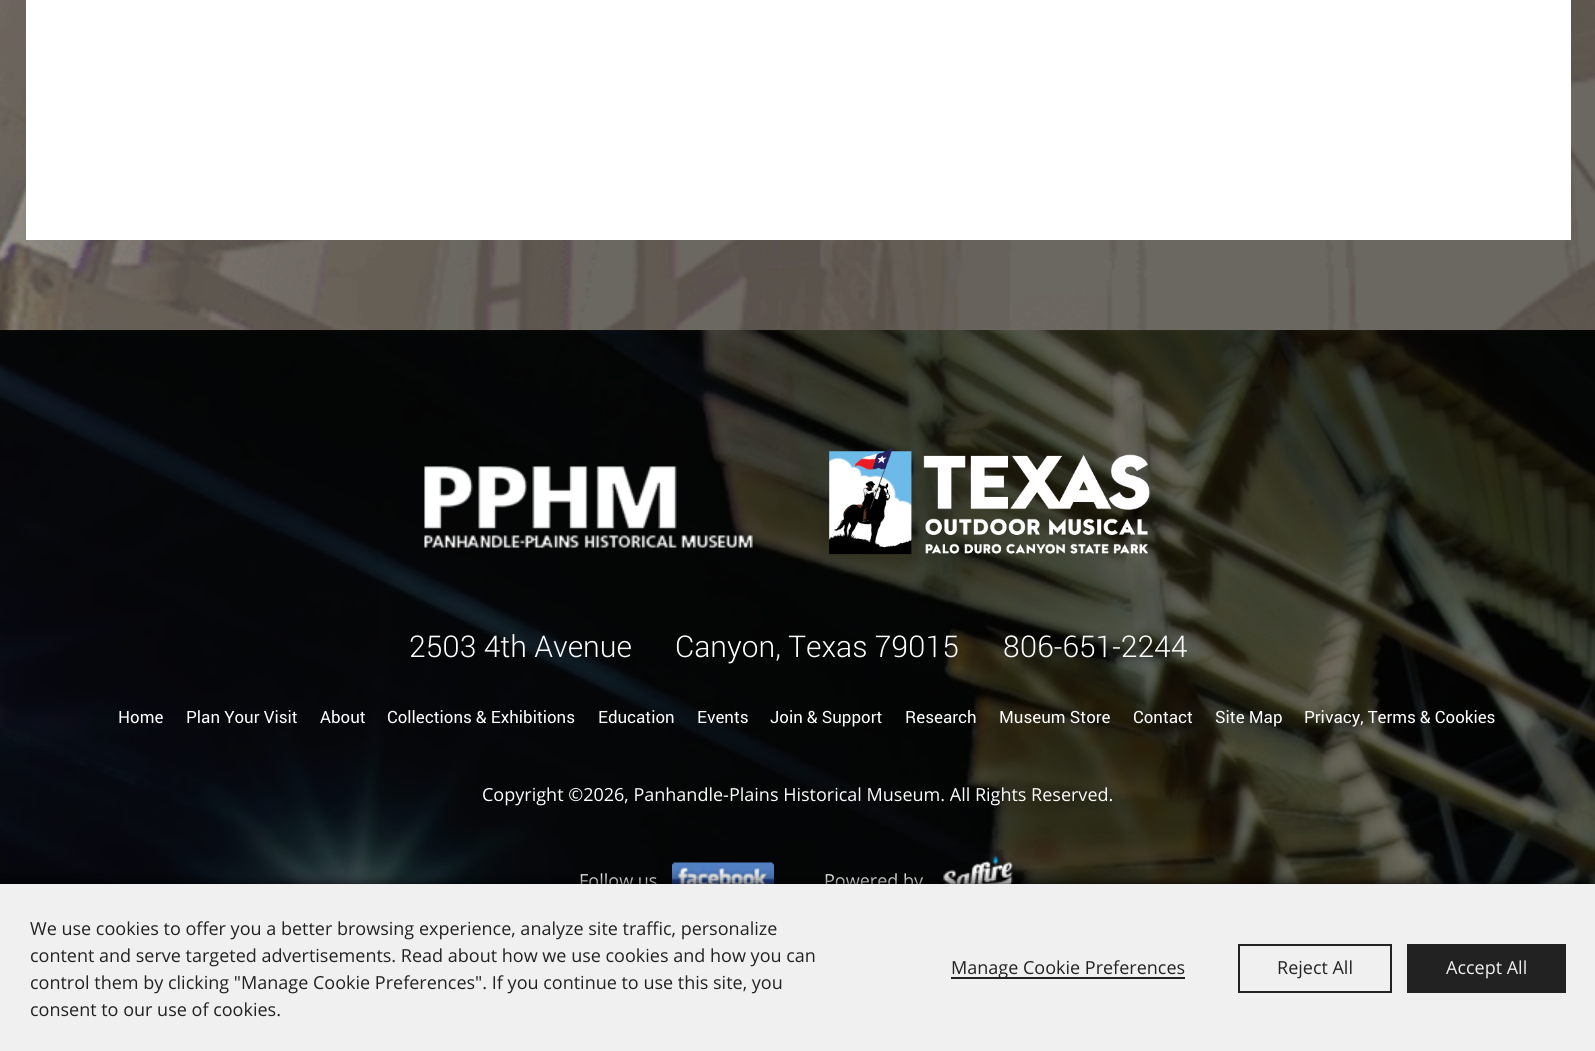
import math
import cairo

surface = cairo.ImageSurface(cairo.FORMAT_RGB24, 1595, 1051)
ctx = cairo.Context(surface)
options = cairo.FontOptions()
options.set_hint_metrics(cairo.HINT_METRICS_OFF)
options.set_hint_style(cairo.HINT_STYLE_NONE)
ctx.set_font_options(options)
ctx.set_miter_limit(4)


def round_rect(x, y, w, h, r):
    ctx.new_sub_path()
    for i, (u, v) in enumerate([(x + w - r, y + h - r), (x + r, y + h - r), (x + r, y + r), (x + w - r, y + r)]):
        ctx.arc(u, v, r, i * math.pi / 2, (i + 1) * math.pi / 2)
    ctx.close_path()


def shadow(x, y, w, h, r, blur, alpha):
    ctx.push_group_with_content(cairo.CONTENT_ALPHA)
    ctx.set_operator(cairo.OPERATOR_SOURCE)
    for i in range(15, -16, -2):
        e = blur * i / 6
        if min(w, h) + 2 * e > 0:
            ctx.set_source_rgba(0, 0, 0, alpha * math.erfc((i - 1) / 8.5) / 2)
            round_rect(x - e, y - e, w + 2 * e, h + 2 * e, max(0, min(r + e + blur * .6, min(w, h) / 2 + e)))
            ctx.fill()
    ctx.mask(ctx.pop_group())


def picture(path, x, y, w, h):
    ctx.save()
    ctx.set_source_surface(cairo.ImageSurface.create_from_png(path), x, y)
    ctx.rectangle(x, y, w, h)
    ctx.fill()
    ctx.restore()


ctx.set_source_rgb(1, 1, 1)
ctx.paint()
picture("img1.png", 0, 0, 1595, 333)
ctx.set_source_rgb(1, 1, 1)
ctx.rectangle(26, 0, 1545, 240)
ctx.fill()
picture("img2.png", 0, 330, 1595, 554)
picture("img3.png", 424, 466, 329, 82)
picture("img4.png", 829, 447, 321, 108)
ctx.select_font_face("Roboto Light")
ctx.set_font_size(30)
ctx.move_to(409, 657)
ctx.show_text("2503 4th Avenue")
ctx.move_to(675, 657)
ctx.show_text("Canyon, Texas 79015")
ctx.move_to(1003, 657)
ctx.show_text("806-651-2244")
ctx.select_font_face("Roboto")
ctx.set_font_size(16.9)
ctx.move_to(118, 723)
ctx.show_text("Home")
ctx.move_to(186, 723)
ctx.show_text("Plan Your Visit")
ctx.move_to(320, 723)
ctx.show_text("About")
ctx.move_to(387, 723)
ctx.show_text("Collections & Exhibitions")
ctx.move_to(598, 723)
ctx.show_text("Education")
ctx.move_to(697, 723)
ctx.show_text("Events")
ctx.move_to(770, 723)
ctx.show_text("Join & Support")
ctx.move_to(905, 723)
ctx.show_text("Research")
ctx.move_to(999, 723)
ctx.show_text("Museum Store")
ctx.move_to(1133, 723)
ctx.show_text("Contact")
ctx.move_to(1215, 723)
ctx.show_text("Site Map")
ctx.move_to(1304, 723)
ctx.show_text("Privacy, Terms & Cookies")
ctx.select_font_face("Open Sans")
ctx.set_font_size(18)
ctx.move_to(482, 801)
ctx.show_text("Copyright ©2026, Panhandle-Plains Historical Museum. All Rights Reserved.")
ctx.move_to(579, 887)
ctx.show_text("Follow us")
picture("img5.png", 672, 862, 102, 22)
ctx.move_to(824, 887)
ctx.show_text("Powered by")
picture("img6.png", 940, 848, 76, 36)
ctx.set_source_rgb(0, 0, 0)
shadow(-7, 884, 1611, 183, 0, 7.5, 1)
ctx.set_source_rgb(0.941, 0.941, 0.941)
ctx.rectangle(0, 884, 1595, 167)
ctx.fill()
ctx.set_source_rgb(0.133, 0.133, 0.133)
ctx.move_to(30, 935)
ctx.show_text("We use cookies to offer you a better browsing experience, analyze site traffic, personalize")
ctx.move_to(30, 962)
ctx.show_text("content and serve targeted advertisements. Read about how we use cookies and how you can")
ctx.move_to(30, 989)
ctx.show_text("control them by clicking \"Manage Cookie Preferences\". If you continue to use this site, you")
ctx.move_to(30, 1016)
ctx.show_text("consent to our use of cookies.")
ctx.rectangle(951, 977, 234, 2)
ctx.fill()
ctx.move_to(951, 974)
ctx.show_text("Manage Cookie Preferences")
ctx.rectangle(1239, 945, 152, 47)
ctx.stroke()
ctx.move_to(1277, 974)
ctx.show_text("Reject All")
ctx.rectangle(1407, 944, 159, 49)
ctx.fill()
ctx.set_source_rgb(0.941, 0.941, 0.941)
ctx.move_to(1446, 974)
ctx.show_text("Accept All")
surface.write_to_png("page.png")
